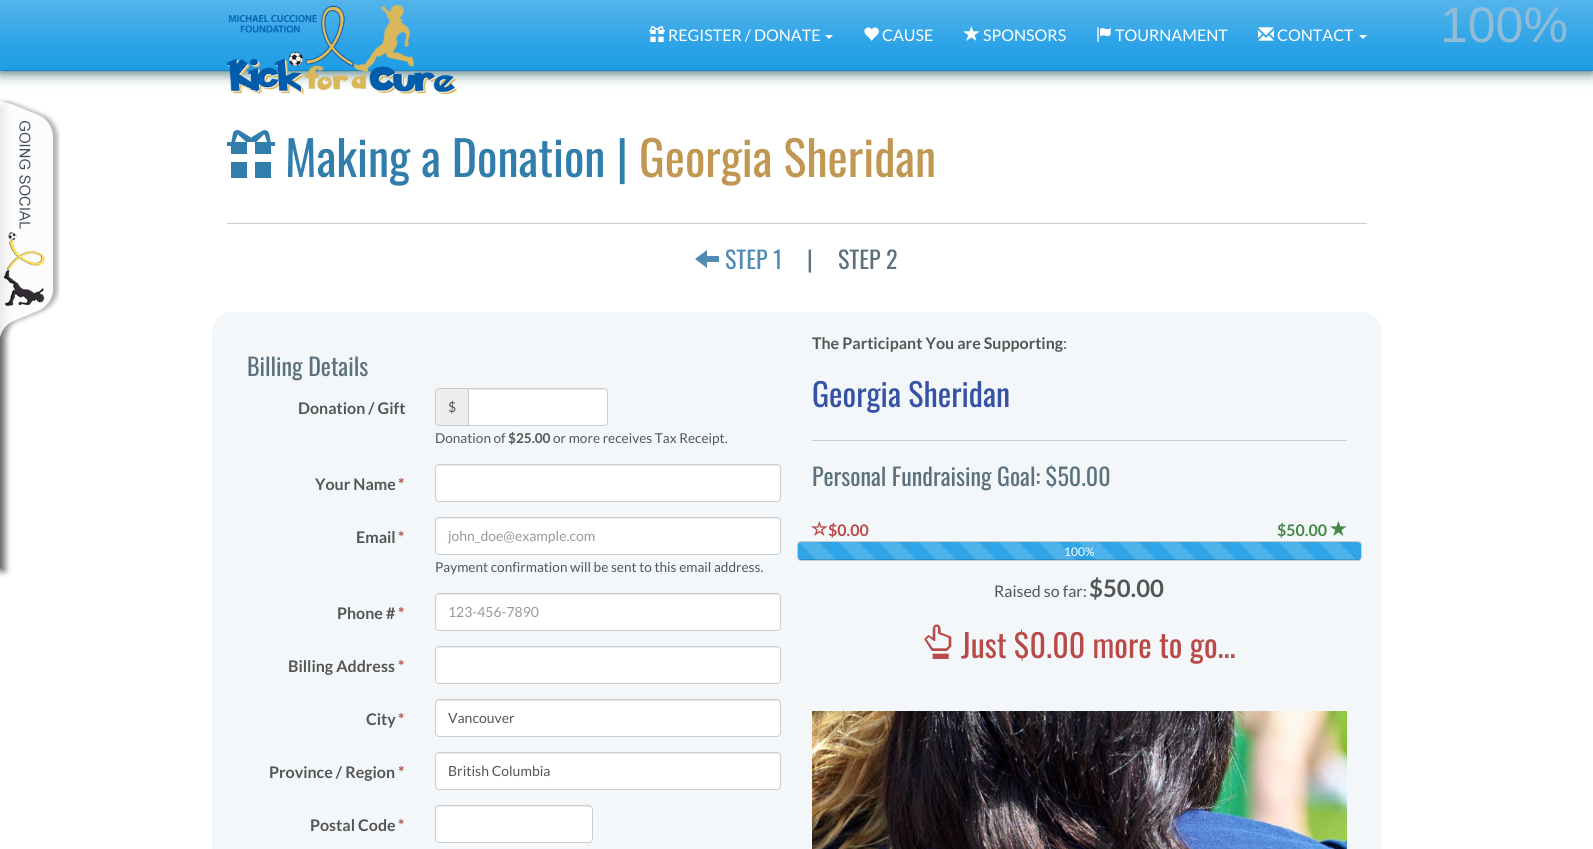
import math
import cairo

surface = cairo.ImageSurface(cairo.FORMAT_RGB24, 1593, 849)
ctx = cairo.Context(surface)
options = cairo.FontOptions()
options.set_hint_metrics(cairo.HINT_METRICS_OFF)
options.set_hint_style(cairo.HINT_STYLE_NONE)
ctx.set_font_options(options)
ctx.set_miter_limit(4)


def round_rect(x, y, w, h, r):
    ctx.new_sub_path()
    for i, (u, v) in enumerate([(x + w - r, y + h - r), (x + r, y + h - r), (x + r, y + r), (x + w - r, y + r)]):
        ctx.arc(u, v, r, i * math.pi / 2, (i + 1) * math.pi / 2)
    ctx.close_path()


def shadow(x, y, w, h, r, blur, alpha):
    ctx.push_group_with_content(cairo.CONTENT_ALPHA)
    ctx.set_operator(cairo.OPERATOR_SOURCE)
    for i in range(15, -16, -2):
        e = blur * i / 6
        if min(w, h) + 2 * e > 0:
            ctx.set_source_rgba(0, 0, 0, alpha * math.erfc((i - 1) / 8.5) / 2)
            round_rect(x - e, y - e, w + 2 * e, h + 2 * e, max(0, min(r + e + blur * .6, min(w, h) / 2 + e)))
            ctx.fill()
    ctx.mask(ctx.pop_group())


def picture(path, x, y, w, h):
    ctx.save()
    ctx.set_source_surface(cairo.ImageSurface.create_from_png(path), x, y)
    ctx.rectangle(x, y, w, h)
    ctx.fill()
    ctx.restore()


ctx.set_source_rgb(1, 1, 1)
ctx.paint()
ctx.set_source_rgb(0.039, 0.278, 0.298)
shadow(0, 0, 1593, 71, 0, 7.5, 1)
gradient = cairo.LinearGradient(797, 0, 797, 70)
gradient.add_color_stop_rgba(0, 0.329, 0.706, 0.922, 1)
gradient.add_color_stop_rgba(0.6, 0.184, 0.643, 0.906, 1)
gradient.add_color_stop_rgba(1, 0.114, 0.612, 0.898, 1)
ctx.set_source(gradient)
ctx.rectangle(0, 0, 1593, 70)
ctx.fill()
ctx.set_source_rgb(0.09, 0.541, 0.8)
ctx.rectangle(0, 70, 1593, 1)
ctx.fill()
picture("img1.png", 226, 5, 231, 89)
picture("img2.png", 649, 26, 16, 16)
ctx.select_font_face("Lato")
ctx.set_font_size(16)
ctx.set_source_rgb(1, 1, 1)
ctx.move_to(668, 41)
ctx.show_text("REGISTER / DONATE")
ctx.new_path()
ctx.move_to(825, 35)
ctx.line_to(833, 35)
ctx.line_to(829, 39)
ctx.close_path()
ctx.fill()
picture("img3.png", 864, 27, 15, 14)
ctx.move_to(882, 41)
ctx.show_text("CAUSE")
picture("img4.png", 963, 26, 17, 15)
ctx.move_to(983, 41)
ctx.show_text("SPONSORS")
picture("img5.png", 1097, 27, 14, 15)
ctx.move_to(1115, 41)
ctx.show_text("TOURNAMENT")
picture("img6.png", 1258, 27, 16, 14)
ctx.move_to(1277, 41)
ctx.show_text("CONTACT")
ctx.new_path()
ctx.move_to(1359, 35)
ctx.line_to(1367, 35)
ctx.line_to(1363, 39)
ctx.close_path()
ctx.fill()
ctx.select_font_face("Liberation Sans")
ctx.set_font_size(50)
ctx.set_source_rgb(0.569, 0.737, 0.835)
ctx.move_to(1440, 42)
ctx.show_text("100%")
ctx.set_source_rgb(0.4, 0.4, 0.4)
shadow(-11, 105, 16, 466, 0, 3.5, 1)
picture("img7.png", 0, 100, 60, 237)
picture("img8.png", 227, 130, 48, 48)
ctx.select_font_face("Oswald")
ctx.set_font_size(48)
ctx.set_source_rgb(0.192, 0.494, 0.675)
ctx.move_to(285, 177)
ctx.show_text("Making a Donation |")
ctx.set_source_rgb(0.753, 0.596, 0.325)
ctx.move_to(639, 177)
ctx.show_text("Georgia Sheridan")
ctx.set_source_rgb(0.8, 0.8, 0.8)
ctx.rectangle(227, 223, 1140, 1)
ctx.fill()
ctx.set_source_rgb(0.31, 0.545, 0.702)
ctx.new_path()
ctx.move_to(695, 259)
ctx.line_to(707, 250)
ctx.line_to(707, 256)
ctx.line_to(719, 256)
ctx.line_to(719, 262)
ctx.line_to(707, 262)
ctx.line_to(707, 268)
ctx.close_path()
ctx.fill()
ctx.set_font_size(24)
ctx.move_to(725, 269)
ctx.show_text("STEP 1")
ctx.set_source_rgb(0.361, 0.443, 0.494)
ctx.move_to(807, 269)
ctx.show_text("|")
ctx.move_to(838, 269)
ctx.show_text("STEP 2")
ctx.set_source_rgb(0.953, 0.965, 0.973)
round_rect(212, 312, 1170, 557, 20)
ctx.fill()
ctx.set_source_rgb(0.361, 0.443, 0.494)
ctx.move_to(247, 376)
ctx.show_text("Billing Details")
ctx.select_font_face("Lato", cairo.FONT_SLANT_NORMAL, cairo.FONT_WEIGHT_BOLD)
ctx.set_font_size(16)
ctx.set_source_rgb(0.333, 0.333, 0.333)
ctx.move_to(298, 414)
ctx.show_text("Donation / Gift")
ctx.set_source_rgb(0.933, 0.933, 0.933)
ctx.new_path()
ctx.move_to(439, 388)
ctx.line_to(468, 388)
ctx.line_to(468, 426)
ctx.line_to(439, 426)
ctx.curve_to(437, 426, 435, 424, 435, 422)
ctx.line_to(435, 392)
ctx.curve_to(435, 390, 437, 388, 439, 388)
ctx.close_path()
ctx.fill()
ctx.set_source_rgb(0.8, 0.8, 0.8)
ctx.set_fill_rule(cairo.FILL_RULE_EVEN_ODD)
ctx.new_path()
ctx.move_to(439, 388)
ctx.line_to(468, 388)
ctx.line_to(468, 426)
ctx.line_to(439, 426)
ctx.curve_to(437, 426, 435, 424, 435, 422)
ctx.line_to(435, 392)
ctx.curve_to(435, 390, 437, 388, 439, 388)
ctx.close_path()
ctx.move_to(439, 389)
ctx.line_to(468, 389)
ctx.line_to(468, 425)
ctx.line_to(439, 425)
ctx.curve_to(437.5, 425, 436, 423.5, 436, 422)
ctx.line_to(436, 392)
ctx.curve_to(436, 390.5, 437.5, 389, 439, 389)
ctx.close_path()
ctx.fill()
ctx.select_font_face("Lato")
ctx.set_font_size(14)
ctx.set_source_rgb(0.333, 0.333, 0.333)
ctx.move_to(448, 412)
ctx.show_text("$")
ctx.set_source_rgb(1, 1, 1)
ctx.new_path()
ctx.move_to(468, 388)
ctx.line_to(604, 388)
ctx.curve_to(606, 388, 608, 390, 608, 392)
ctx.line_to(608, 422)
ctx.curve_to(608, 424, 606, 426, 604, 426)
ctx.line_to(468, 426)
ctx.close_path()
ctx.fill()
ctx.set_source_rgb(0.925, 0.925, 0.925)
ctx.set_fill_rule(cairo.FILL_RULE_WINDING)
ctx.new_path()
ctx.move_to(469, 390)
ctx.line_to(604, 390)
ctx.curve_to(606, 390, 607, 391, 607, 393)
ctx.curve_to(607, 391, 606, 389, 604, 389)
ctx.line_to(469, 389)
ctx.close_path()
ctx.fill()
ctx.new_path()
ctx.move_to(468.5, 388.5)
ctx.line_to(604, 388.5)
ctx.curve_to(606, 388.5, 607.5, 390, 607.5, 392)
ctx.line_to(607.5, 422)
ctx.curve_to(607.5, 424, 606, 425.5, 604, 425.5)
ctx.line_to(468.5, 425.5)
ctx.close_path()
ctx.set_source_rgb(0.8, 0.8, 0.8)
ctx.set_line_width(1)
ctx.stroke()
ctx.set_font_size(13.6)
ctx.set_source_rgb(0.333, 0.333, 0.333)
ctx.move_to(435, 443)
ctx.show_text("Donation of")
ctx.select_font_face("Lato", cairo.FONT_SLANT_NORMAL, cairo.FONT_WEIGHT_BOLD)
ctx.move_to(508, 443)
ctx.show_text("$25.00")
ctx.select_font_face("Lato")
ctx.move_to(553, 443)
ctx.show_text("or more receives Tax Receipt.")
ctx.select_font_face("Lato", cairo.FONT_SLANT_NORMAL, cairo.FONT_WEIGHT_BOLD)
ctx.set_font_size(16)
ctx.move_to(315, 490)
ctx.show_text("Your Name")
ctx.set_source_rgb(0.725, 0.29, 0.282)
ctx.move_to(398, 490)
ctx.show_text("*")
ctx.set_source_rgb(1, 1, 1)
round_rect(435, 464, 346, 38, 4)
ctx.fill()
ctx.set_source_rgb(0.925, 0.925, 0.925)
ctx.new_path()
ctx.move_to(439, 466)
ctx.line_to(777, 466)
ctx.curve_to(779, 466, 780, 467, 780, 469)
ctx.curve_to(780, 467, 779, 465, 777, 465)
ctx.line_to(439, 465)
ctx.curve_to(437, 465, 436, 467, 436, 469)
ctx.curve_to(436, 467, 437, 466, 439, 466)
ctx.close_path()
ctx.fill()
round_rect(435.5, 464.5, 345, 37, 3.5)
ctx.set_source_rgb(0.8, 0.8, 0.8)
ctx.stroke()
ctx.set_source_rgb(0.333, 0.333, 0.333)
ctx.move_to(356, 543)
ctx.show_text("Email")
ctx.set_source_rgb(0.725, 0.29, 0.282)
ctx.move_to(398, 543)
ctx.show_text("*")
ctx.set_source_rgb(1, 1, 1)
round_rect(435, 517, 346, 38, 4)
ctx.fill()
ctx.set_source_rgb(0.925, 0.925, 0.925)
ctx.new_path()
ctx.move_to(439, 519)
ctx.line_to(777, 519)
ctx.curve_to(779, 519, 780, 520, 780, 522)
ctx.curve_to(780, 520, 779, 518, 777, 518)
ctx.line_to(439, 518)
ctx.curve_to(437, 518, 436, 520, 436, 522)
ctx.curve_to(436, 520, 437, 519, 439, 519)
ctx.close_path()
ctx.fill()
round_rect(435.5, 517.5, 345, 37, 3.5)
ctx.set_source_rgb(0.8, 0.8, 0.8)
ctx.stroke()
ctx.select_font_face("Lato")
ctx.set_font_size(14)
ctx.set_source_rgb(0.6, 0.6, 0.6)
ctx.move_to(448, 541)
ctx.show_text("john_doe@example.com")
ctx.set_font_size(13.6)
ctx.set_source_rgb(0.333, 0.333, 0.333)
ctx.move_to(435, 572)
ctx.show_text("Payment confirmation will be sent to this email address.")
ctx.select_font_face("Lato", cairo.FONT_SLANT_NORMAL, cairo.FONT_WEIGHT_BOLD)
ctx.set_font_size(16)
ctx.move_to(337, 619)
ctx.show_text("Phone #")
ctx.set_source_rgb(0.725, 0.29, 0.282)
ctx.move_to(398, 619)
ctx.show_text("*")
ctx.set_source_rgb(1, 1, 1)
round_rect(435, 593, 346, 38, 4)
ctx.fill()
ctx.set_source_rgb(0.925, 0.925, 0.925)
ctx.new_path()
ctx.move_to(439, 595)
ctx.line_to(777, 595)
ctx.curve_to(779, 595, 780, 596, 780, 598)
ctx.curve_to(780, 596, 779, 594, 777, 594)
ctx.line_to(439, 594)
ctx.curve_to(437, 594, 436, 596, 436, 598)
ctx.curve_to(436, 596, 437, 595, 439, 595)
ctx.close_path()
ctx.fill()
round_rect(435.5, 593.5, 345, 37, 3.5)
ctx.set_source_rgb(0.8, 0.8, 0.8)
ctx.stroke()
ctx.select_font_face("Lato")
ctx.set_font_size(14)
ctx.set_source_rgb(0.6, 0.6, 0.6)
ctx.move_to(448, 617)
ctx.show_text("123-456-7890")
ctx.select_font_face("Lato", cairo.FONT_SLANT_NORMAL, cairo.FONT_WEIGHT_BOLD)
ctx.set_font_size(16)
ctx.set_source_rgb(0.333, 0.333, 0.333)
ctx.move_to(288, 672)
ctx.show_text("Billing Address")
ctx.set_source_rgb(0.725, 0.29, 0.282)
ctx.move_to(398, 672)
ctx.show_text("*")
ctx.set_source_rgb(1, 1, 1)
round_rect(435, 646, 346, 38, 4)
ctx.fill()
ctx.set_source_rgb(0.925, 0.925, 0.925)
ctx.new_path()
ctx.move_to(439, 648)
ctx.line_to(777, 648)
ctx.curve_to(779, 648, 780, 649, 780, 651)
ctx.curve_to(780, 649, 779, 647, 777, 647)
ctx.line_to(439, 647)
ctx.curve_to(437, 647, 436, 649, 436, 651)
ctx.curve_to(436, 649, 437, 648, 439, 648)
ctx.close_path()
ctx.fill()
round_rect(435.5, 646.5, 345, 37, 3.5)
ctx.set_source_rgb(0.8, 0.8, 0.8)
ctx.stroke()
ctx.set_source_rgb(0.333, 0.333, 0.333)
ctx.move_to(366, 725)
ctx.show_text("City")
ctx.set_source_rgb(0.725, 0.29, 0.282)
ctx.move_to(398, 725)
ctx.show_text("*")
ctx.set_source_rgb(1, 1, 1)
round_rect(435, 699, 346, 38, 4)
ctx.fill()
ctx.set_source_rgb(0.925, 0.925, 0.925)
ctx.new_path()
ctx.move_to(439, 701)
ctx.line_to(777, 701)
ctx.curve_to(779, 701, 780, 702, 780, 704)
ctx.curve_to(780, 702, 779, 700, 777, 700)
ctx.line_to(439, 700)
ctx.curve_to(437, 700, 436, 702, 436, 704)
ctx.curve_to(436, 702, 437, 701, 439, 701)
ctx.close_path()
ctx.fill()
round_rect(435.5, 699.5, 345, 37, 3.5)
ctx.set_source_rgb(0.8, 0.8, 0.8)
ctx.stroke()
ctx.select_font_face("Lato")
ctx.set_font_size(14)
ctx.set_source_rgb(0.333, 0.333, 0.333)
ctx.move_to(448, 723)
ctx.show_text("Vancouver")
ctx.select_font_face("Lato", cairo.FONT_SLANT_NORMAL, cairo.FONT_WEIGHT_BOLD)
ctx.set_font_size(16)
ctx.move_to(269, 778)
ctx.show_text("Province / Region")
ctx.set_source_rgb(0.725, 0.29, 0.282)
ctx.move_to(398, 778)
ctx.show_text("*")
ctx.set_source_rgb(1, 1, 1)
round_rect(435, 752, 346, 38, 4)
ctx.fill()
ctx.set_source_rgb(0.925, 0.925, 0.925)
ctx.new_path()
ctx.move_to(439, 754)
ctx.line_to(777, 754)
ctx.curve_to(779, 754, 780, 755, 780, 757)
ctx.curve_to(780, 755, 779, 753, 777, 753)
ctx.line_to(439, 753)
ctx.curve_to(437, 753, 436, 755, 436, 757)
ctx.curve_to(436, 755, 437, 754, 439, 754)
ctx.close_path()
ctx.fill()
round_rect(435.5, 752.5, 345, 37, 3.5)
ctx.set_source_rgb(0.8, 0.8, 0.8)
ctx.stroke()
ctx.select_font_face("Lato")
ctx.set_font_size(14)
ctx.set_source_rgb(0.333, 0.333, 0.333)
ctx.move_to(448, 776)
ctx.show_text("British Columbia")
ctx.select_font_face("Lato", cairo.FONT_SLANT_NORMAL, cairo.FONT_WEIGHT_BOLD)
ctx.set_font_size(16)
ctx.move_to(310, 831)
ctx.show_text("Postal Code")
ctx.set_source_rgb(0.725, 0.29, 0.282)
ctx.move_to(398, 831)
ctx.show_text("*")
ctx.set_source_rgb(1, 1, 1)
round_rect(435, 805, 158, 38, 4)
ctx.fill()
ctx.set_source_rgb(0.925, 0.925, 0.925)
ctx.new_path()
ctx.move_to(439, 807)
ctx.line_to(589, 807)
ctx.curve_to(591, 807, 592, 808, 592, 810)
ctx.curve_to(592, 808, 591, 806, 589, 806)
ctx.line_to(438, 806)
ctx.curve_to(436, 806, 436, 808, 436, 810)
ctx.curve_to(436, 808, 437, 807, 439, 807)
ctx.close_path()
ctx.fill()
round_rect(435.5, 805.5, 157, 37, 3.5)
ctx.set_source_rgb(0.8, 0.8, 0.8)
ctx.stroke()
ctx.set_source_rgb(0.333, 0.333, 0.333)
ctx.move_to(812, 349)
ctx.show_text("The Participant You are Supporting")
ctx.select_font_face("Lato")
ctx.move_to(1063, 349)
ctx.show_text(":")
ctx.select_font_face("Oswald")
ctx.set_font_size(32)
ctx.set_source_rgb(0.208, 0.322, 0.643)
ctx.move_to(812, 407)
ctx.show_text("Georgia Sheridan")
ctx.set_source_rgb(0.8, 0.8, 0.8)
ctx.rectangle(812, 440, 535, 1)
ctx.fill()
ctx.set_font_size(24)
ctx.set_source_rgb(0.361, 0.443, 0.494)
ctx.move_to(812, 486)
ctx.show_text("Personal Fundraising Goal: $50.00")
picture("img9.png", 811, 521, 17, 15)
ctx.select_font_face("Lato", cairo.FONT_SLANT_NORMAL, cairo.FONT_WEIGHT_BOLD)
ctx.set_font_size(16)
ctx.set_source_rgb(0.725, 0.29, 0.282)
ctx.move_to(828, 536)
ctx.show_text("$0.00")
ctx.set_source_rgb(0.275, 0.533, 0.278)
ctx.move_to(1277, 536)
ctx.show_text("$50.00")
picture("img10.png", 1330, 521, 17, 15)
round_rect(797.5, 541.5, 564, 19, 3.5)
ctx.set_source_rgb(0.8, 0.8, 0.8)
ctx.stroke()
ctx.set_source_rgb(0.184, 0.643, 0.906)
round_rect(798, 542, 563, 18, 3)
ctx.fill()
gradient = cairo.LinearGradient(798, 582, 838, 542)
gradient.add_color_stop_rgba(0.25, 1, 1, 1, 0.15)
gradient.add_color_stop_rgba(0.25, 1, 1, 1, 0)
gradient.add_color_stop_rgba(0.5, 1, 1, 1, 0)
gradient.add_color_stop_rgba(0.5, 1, 1, 1, 0.15)
gradient.add_color_stop_rgba(0.75, 1, 1, 1, 0.15)
gradient.add_color_stop_rgba(0.75, 1, 1, 1, 0)
gradient.add_color_stop_rgba(1, 0, 0, 0, 0)
ctx.set_source(gradient)
ctx.new_path()
ctx.move_to(801, 542)
ctx.line_to(838, 542)
ctx.line_to(838, 560)
ctx.line_to(801, 560)
ctx.curve_to(799.5, 560, 798, 558.5, 798, 557)
ctx.line_to(798, 545)
ctx.curve_to(798, 543.5, 799.5, 542, 801, 542)
ctx.close_path()
ctx.fill()
gradient = cairo.LinearGradient(838, 582, 878, 542)
gradient.add_color_stop_rgba(0.25, 0.306, 0.698, 0.922, 1)
gradient.add_color_stop_rgba(0.25, 0.184, 0.643, 0.906, 1)
gradient.add_color_stop_rgba(0.5, 0.184, 0.643, 0.906, 1)
gradient.add_color_stop_rgba(0.5, 0.306, 0.698, 0.922, 1)
gradient.add_color_stop_rgba(0.75, 0.306, 0.698, 0.922, 1)
gradient.add_color_stop_rgba(0.75, 0.184, 0.643, 0.906, 1)
gradient.add_color_stop_rgba(1, 0.184, 0.643, 0.906, 1)
ctx.set_source(gradient)
ctx.rectangle(838, 542, 38, 18)
ctx.fill()
gradient = cairo.LinearGradient(878, 582, 918, 542)
gradient.add_color_stop_rgba(0.25, 0.306, 0.698, 0.922, 1)
gradient.add_color_stop_rgba(0.25, 0.184, 0.643, 0.906, 1)
gradient.add_color_stop_rgba(0.5, 0.184, 0.643, 0.906, 1)
gradient.add_color_stop_rgba(0.5, 0.306, 0.698, 0.922, 1)
gradient.add_color_stop_rgba(0.75, 0.306, 0.698, 0.922, 1)
gradient.add_color_stop_rgba(0.75, 0.184, 0.643, 0.906, 1)
gradient.add_color_stop_rgba(1, 0.184, 0.643, 0.906, 1)
ctx.set_source(gradient)
ctx.rectangle(878, 542, 38, 18)
ctx.fill()
gradient = cairo.LinearGradient(918, 582, 958, 542)
gradient.add_color_stop_rgba(0.25, 0.306, 0.698, 0.922, 1)
gradient.add_color_stop_rgba(0.25, 0.184, 0.643, 0.906, 1)
gradient.add_color_stop_rgba(0.5, 0.184, 0.643, 0.906, 1)
gradient.add_color_stop_rgba(0.5, 0.306, 0.698, 0.922, 1)
gradient.add_color_stop_rgba(0.75, 0.306, 0.698, 0.922, 1)
gradient.add_color_stop_rgba(0.75, 0.184, 0.643, 0.906, 1)
gradient.add_color_stop_rgba(1, 0.184, 0.643, 0.906, 1)
ctx.set_source(gradient)
ctx.rectangle(918, 542, 38, 18)
ctx.fill()
gradient = cairo.LinearGradient(958, 582, 998, 542)
gradient.add_color_stop_rgba(0.25, 0.306, 0.698, 0.922, 1)
gradient.add_color_stop_rgba(0.25, 0.184, 0.643, 0.906, 1)
gradient.add_color_stop_rgba(0.5, 0.184, 0.643, 0.906, 1)
gradient.add_color_stop_rgba(0.5, 0.306, 0.698, 0.922, 1)
gradient.add_color_stop_rgba(0.75, 0.306, 0.698, 0.922, 1)
gradient.add_color_stop_rgba(0.75, 0.184, 0.643, 0.906, 1)
gradient.add_color_stop_rgba(1, 0.184, 0.643, 0.906, 1)
ctx.set_source(gradient)
ctx.rectangle(958, 542, 38, 18)
ctx.fill()
gradient = cairo.LinearGradient(998, 582, 1038, 542)
gradient.add_color_stop_rgba(0.25, 0.306, 0.698, 0.922, 1)
gradient.add_color_stop_rgba(0.25, 0.184, 0.643, 0.906, 1)
gradient.add_color_stop_rgba(0.5, 0.184, 0.643, 0.906, 1)
gradient.add_color_stop_rgba(0.5, 0.306, 0.698, 0.922, 1)
gradient.add_color_stop_rgba(0.75, 0.306, 0.698, 0.922, 1)
gradient.add_color_stop_rgba(0.75, 0.184, 0.643, 0.906, 1)
gradient.add_color_stop_rgba(1, 0.184, 0.643, 0.906, 1)
ctx.set_source(gradient)
ctx.rectangle(998, 542, 38, 18)
ctx.fill()
gradient = cairo.LinearGradient(1038, 582, 1078, 542)
gradient.add_color_stop_rgba(0.25, 0.306, 0.698, 0.922, 1)
gradient.add_color_stop_rgba(0.25, 0.184, 0.643, 0.906, 1)
gradient.add_color_stop_rgba(0.5, 0.184, 0.643, 0.906, 1)
gradient.add_color_stop_rgba(0.5, 0.306, 0.698, 0.922, 1)
gradient.add_color_stop_rgba(0.75, 0.306, 0.698, 0.922, 1)
gradient.add_color_stop_rgba(0.75, 0.184, 0.643, 0.906, 1)
gradient.add_color_stop_rgba(1, 0.184, 0.643, 0.906, 1)
ctx.set_source(gradient)
ctx.rectangle(1038, 542, 38, 18)
ctx.fill()
gradient = cairo.LinearGradient(1078, 582, 1118, 542)
gradient.add_color_stop_rgba(0.25, 0.306, 0.698, 0.922, 1)
gradient.add_color_stop_rgba(0.25, 0.184, 0.643, 0.906, 1)
gradient.add_color_stop_rgba(0.5, 0.184, 0.643, 0.906, 1)
gradient.add_color_stop_rgba(0.5, 0.306, 0.698, 0.922, 1)
gradient.add_color_stop_rgba(0.75, 0.306, 0.698, 0.922, 1)
gradient.add_color_stop_rgba(0.75, 0.184, 0.643, 0.906, 1)
gradient.add_color_stop_rgba(1, 0.184, 0.643, 0.906, 1)
ctx.set_source(gradient)
ctx.rectangle(1078, 542, 38, 18)
ctx.fill()
gradient = cairo.LinearGradient(1118, 582, 1158, 542)
gradient.add_color_stop_rgba(0.25, 0.306, 0.698, 0.922, 1)
gradient.add_color_stop_rgba(0.25, 0.184, 0.643, 0.906, 1)
gradient.add_color_stop_rgba(0.5, 0.184, 0.643, 0.906, 1)
gradient.add_color_stop_rgba(0.5, 0.306, 0.698, 0.922, 1)
gradient.add_color_stop_rgba(0.75, 0.306, 0.698, 0.922, 1)
gradient.add_color_stop_rgba(0.75, 0.184, 0.643, 0.906, 1)
gradient.add_color_stop_rgba(1, 0.184, 0.643, 0.906, 1)
ctx.set_source(gradient)
ctx.rectangle(1118, 542, 38, 18)
ctx.fill()
gradient = cairo.LinearGradient(1158, 582, 1198, 542)
gradient.add_color_stop_rgba(0.25, 0.306, 0.698, 0.922, 1)
gradient.add_color_stop_rgba(0.25, 0.184, 0.643, 0.906, 1)
gradient.add_color_stop_rgba(0.5, 0.184, 0.643, 0.906, 1)
gradient.add_color_stop_rgba(0.5, 0.306, 0.698, 0.922, 1)
gradient.add_color_stop_rgba(0.75, 0.306, 0.698, 0.922, 1)
gradient.add_color_stop_rgba(0.75, 0.184, 0.643, 0.906, 1)
gradient.add_color_stop_rgba(1, 0.184, 0.643, 0.906, 1)
ctx.set_source(gradient)
ctx.rectangle(1158, 542, 38, 18)
ctx.fill()
gradient = cairo.LinearGradient(1198, 582, 1238, 542)
gradient.add_color_stop_rgba(0.25, 0.306, 0.698, 0.922, 1)
gradient.add_color_stop_rgba(0.25, 0.184, 0.643, 0.906, 1)
gradient.add_color_stop_rgba(0.5, 0.184, 0.643, 0.906, 1)
gradient.add_color_stop_rgba(0.5, 0.306, 0.698, 0.922, 1)
gradient.add_color_stop_rgba(0.75, 0.306, 0.698, 0.922, 1)
gradient.add_color_stop_rgba(0.75, 0.184, 0.643, 0.906, 1)
gradient.add_color_stop_rgba(1, 0.184, 0.643, 0.906, 1)
ctx.set_source(gradient)
ctx.rectangle(1198, 542, 38, 18)
ctx.fill()
gradient = cairo.LinearGradient(1238, 582, 1278, 542)
gradient.add_color_stop_rgba(0.25, 0.306, 0.698, 0.922, 1)
gradient.add_color_stop_rgba(0.25, 0.184, 0.643, 0.906, 1)
gradient.add_color_stop_rgba(0.5, 0.184, 0.643, 0.906, 1)
gradient.add_color_stop_rgba(0.5, 0.306, 0.698, 0.922, 1)
gradient.add_color_stop_rgba(0.75, 0.306, 0.698, 0.922, 1)
gradient.add_color_stop_rgba(0.75, 0.184, 0.643, 0.906, 1)
gradient.add_color_stop_rgba(1, 0.184, 0.643, 0.906, 1)
ctx.set_source(gradient)
ctx.rectangle(1238, 542, 38, 18)
ctx.fill()
gradient = cairo.LinearGradient(1278, 582, 1318, 542)
gradient.add_color_stop_rgba(0.25, 0.306, 0.698, 0.922, 1)
gradient.add_color_stop_rgba(0.25, 0.184, 0.643, 0.906, 1)
gradient.add_color_stop_rgba(0.5, 0.184, 0.643, 0.906, 1)
gradient.add_color_stop_rgba(0.5, 0.306, 0.698, 0.922, 1)
gradient.add_color_stop_rgba(0.75, 0.306, 0.698, 0.922, 1)
gradient.add_color_stop_rgba(0.75, 0.184, 0.643, 0.906, 1)
gradient.add_color_stop_rgba(1, 0.184, 0.643, 0.906, 1)
ctx.set_source(gradient)
ctx.rectangle(1278, 542, 38, 18)
ctx.fill()
gradient = cairo.LinearGradient(1318, 582, 1358, 542)
gradient.add_color_stop_rgba(0.25, 0.306, 0.698, 0.922, 1)
gradient.add_color_stop_rgba(0.25, 0.184, 0.643, 0.906, 1)
gradient.add_color_stop_rgba(0.5, 0.184, 0.643, 0.906, 1)
gradient.add_color_stop_rgba(0.5, 0.306, 0.698, 0.922, 1)
gradient.add_color_stop_rgba(0.75, 0.306, 0.698, 0.922, 1)
gradient.add_color_stop_rgba(0.75, 0.184, 0.643, 0.906, 1)
gradient.add_color_stop_rgba(1, 0.184, 0.643, 0.906, 1)
ctx.set_source(gradient)
ctx.rectangle(1318, 542, 38, 18)
ctx.fill()
gradient = cairo.LinearGradient(1358, 582, 1398, 542)
gradient.add_color_stop_rgba(0.25, 1, 1, 1, 0.15)
gradient.add_color_stop_rgba(0.25, 1, 1, 1, 0)
gradient.add_color_stop_rgba(0.5, 1, 1, 1, 0)
gradient.add_color_stop_rgba(0.5, 1, 1, 1, 0.15)
gradient.add_color_stop_rgba(0.75, 1, 1, 1, 0.15)
gradient.add_color_stop_rgba(0.75, 1, 1, 1, 0)
gradient.add_color_stop_rgba(1, 0, 0, 0, 0)
ctx.set_source(gradient)
ctx.new_path()
ctx.move_to(1358, 542)
ctx.curve_to(1359.5, 542, 1361, 543.5, 1361, 545)
ctx.line_to(1361, 557)
ctx.curve_to(1361, 558.5, 1359.5, 560, 1358, 560)
ctx.close_path()
ctx.fill()
ctx.save()
round_rect(798, 542, 563, 18, 3)
ctx.clip()
ctx.set_source_rgba(0, 0, 0, 0.15)
ctx.rectangle(798, 559, 563, 1)
ctx.fill()
ctx.restore()
ctx.select_font_face("Lato")
ctx.set_font_size(12)
ctx.set_source_rgb(1, 1, 1)
ctx.move_to(1064, 556)
ctx.show_text("100%")
ctx.set_font_size(16)
ctx.set_source_rgb(0.333, 0.333, 0.333)
ctx.move_to(994, 597)
ctx.show_text("Raised so far:")
ctx.select_font_face("Lato", cairo.FONT_SLANT_NORMAL, cairo.FONT_WEIGHT_BOLD)
ctx.set_font_size(24)
ctx.move_to(1089, 597)
ctx.show_text("$50.00")
picture("img11.png", 924, 624, 28, 35)
ctx.select_font_face("Oswald")
ctx.set_font_size(32)
ctx.set_source_rgb(0.725, 0.29, 0.282)
ctx.move_to(961, 658)
ctx.show_text("Just $0.00 more to go...")
picture("img12.png", 812, 711, 535, 138)
surface.write_to_png("page.png")
